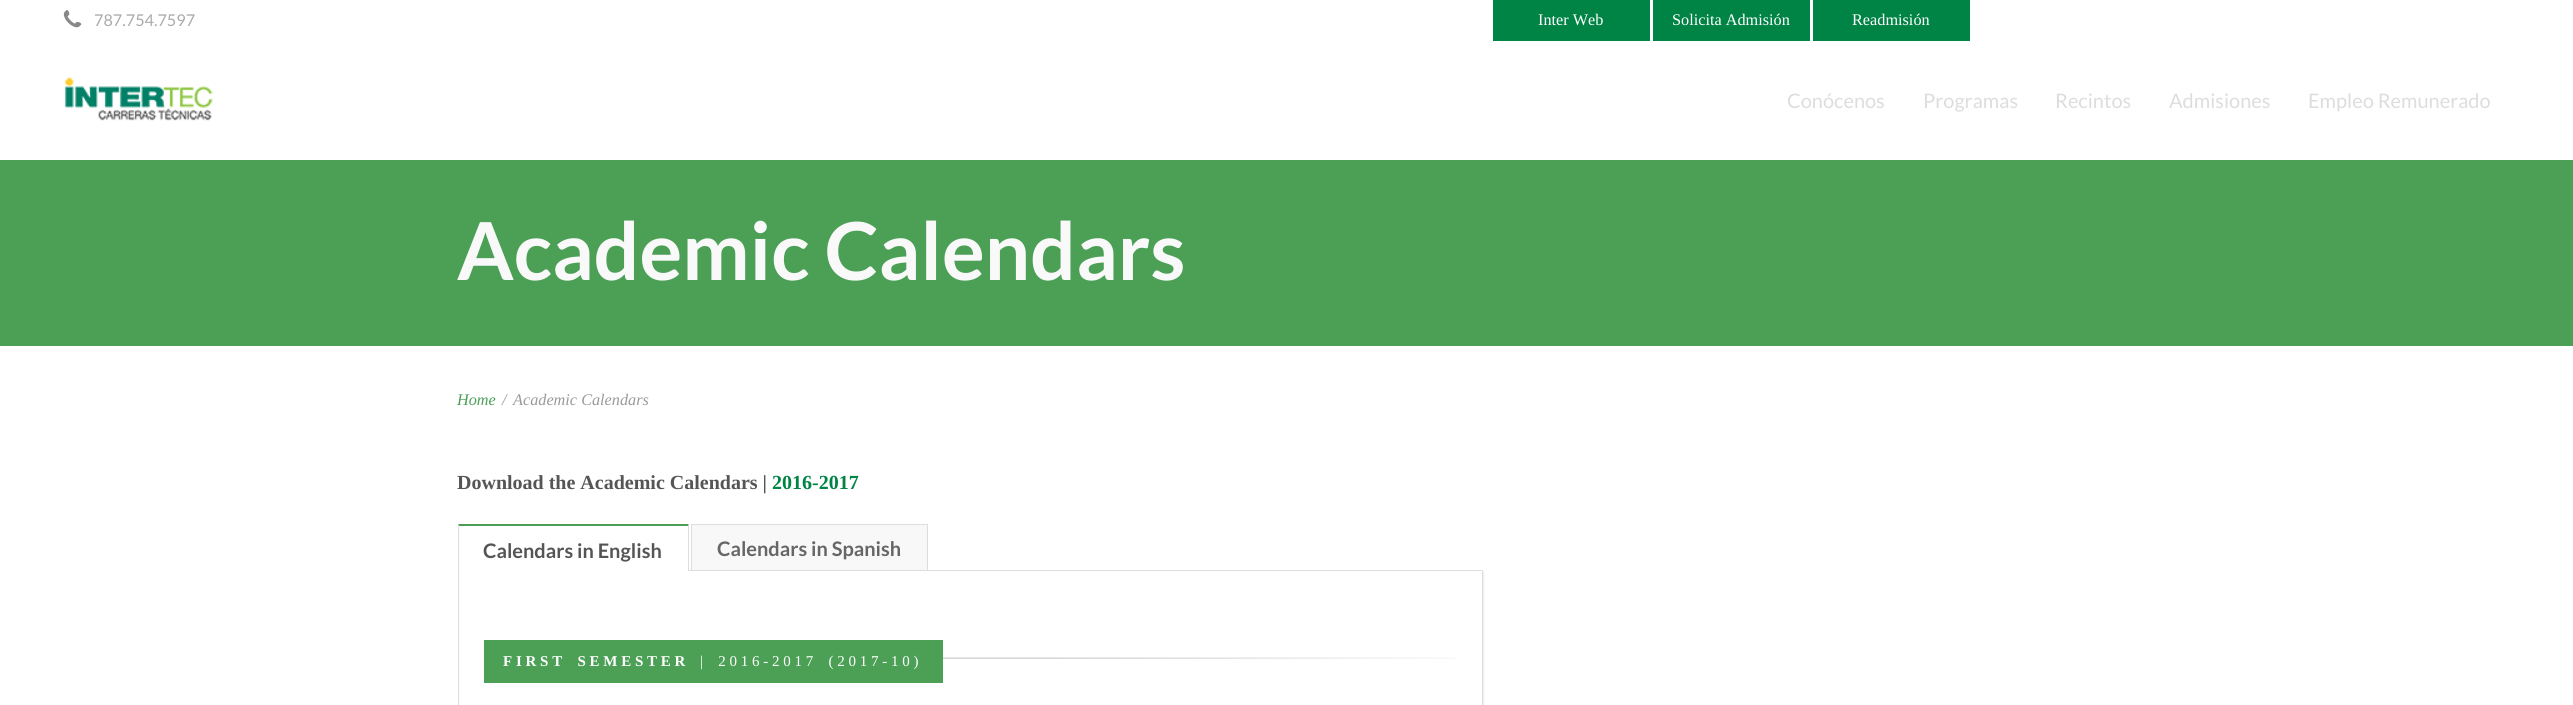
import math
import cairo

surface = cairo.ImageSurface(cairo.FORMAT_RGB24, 2573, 705)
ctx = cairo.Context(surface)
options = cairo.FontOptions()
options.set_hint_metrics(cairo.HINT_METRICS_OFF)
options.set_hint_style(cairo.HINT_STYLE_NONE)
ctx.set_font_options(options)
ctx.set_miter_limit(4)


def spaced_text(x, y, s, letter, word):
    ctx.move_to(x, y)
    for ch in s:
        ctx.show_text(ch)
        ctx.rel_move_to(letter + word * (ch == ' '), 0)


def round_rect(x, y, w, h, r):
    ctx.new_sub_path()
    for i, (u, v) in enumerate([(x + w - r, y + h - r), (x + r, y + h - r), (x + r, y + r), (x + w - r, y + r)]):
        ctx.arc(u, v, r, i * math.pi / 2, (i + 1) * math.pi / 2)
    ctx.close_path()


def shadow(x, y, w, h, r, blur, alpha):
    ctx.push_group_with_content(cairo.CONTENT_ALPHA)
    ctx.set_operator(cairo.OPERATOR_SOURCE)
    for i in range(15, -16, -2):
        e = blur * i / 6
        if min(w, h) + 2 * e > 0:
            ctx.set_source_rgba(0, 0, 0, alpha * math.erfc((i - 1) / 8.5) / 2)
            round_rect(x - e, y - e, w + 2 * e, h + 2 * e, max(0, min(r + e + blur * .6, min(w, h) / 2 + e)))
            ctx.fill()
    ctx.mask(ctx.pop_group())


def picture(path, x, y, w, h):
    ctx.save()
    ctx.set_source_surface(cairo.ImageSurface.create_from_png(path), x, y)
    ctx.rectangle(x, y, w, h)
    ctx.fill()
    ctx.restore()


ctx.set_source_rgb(1, 1, 1)
ctx.paint()
picture("img1.png", 63, 10, 19, 18)
ctx.select_font_face("Lato")
ctx.set_font_size(16.25)
ctx.set_source_rgb(0.667, 0.667, 0.667)
ctx.move_to(94, 26)
ctx.show_text("787.754.7597")
ctx.set_source_rgb(0, 0.518, 0.271)
ctx.rectangle(1493, 0, 157, 41)
ctx.fill()
ctx.select_font_face("Liberation Serif")
ctx.set_source_rgb(1, 1, 1)
ctx.move_to(1538, 25)
ctx.show_text("Inter Web")
ctx.set_source_rgb(0, 0.518, 0.271)
ctx.rectangle(1653, 0, 157, 41)
ctx.fill()
ctx.set_source_rgb(1, 1, 1)
ctx.move_to(1672, 25)
ctx.show_text("Solicita Admisión")
ctx.set_source_rgb(0, 0.518, 0.271)
ctx.rectangle(1813, 0, 157, 41)
ctx.fill()
ctx.set_source_rgb(1, 1, 1)
ctx.move_to(1852, 25)
ctx.show_text("Readmisión")
picture("img2.png", 64, 77, 149, 44)
ctx.select_font_face("Lato")
ctx.set_font_size(20)
ctx.set_source_rgb(0.867, 0.867, 0.867)
ctx.move_to(1787, 108)
ctx.show_text("Conócenos")
ctx.move_to(1923, 108)
ctx.show_text("Programas")
ctx.move_to(2055, 108)
ctx.show_text("Recintos")
ctx.move_to(2169, 108)
ctx.show_text("Admisiones")
ctx.move_to(2308, 108)
ctx.show_text("Empleo Remunerado")
ctx.set_source_rgb(0.294, 0.627, 0.337)
ctx.rectangle(0, 160, 2573, 186)
ctx.fill()
ctx.select_font_face("Lato", cairo.FONT_SLANT_NORMAL, cairo.FONT_WEIGHT_BOLD)
ctx.set_font_size(80)
ctx.set_source_rgb(0.976, 0.976, 0.976)
ctx.move_to(457, 280)
ctx.show_text("Academic Calendars")
ctx.select_font_face("Liberation Serif", cairo.FONT_SLANT_ITALIC)
ctx.set_font_size(16.25)
ctx.set_source_rgb(0.294, 0.627, 0.337)
ctx.move_to(457, 405)
ctx.show_text("Home")
ctx.set_source_rgb(0.604, 0.604, 0.604)
ctx.move_to(502, 405)
ctx.show_text("/")
ctx.move_to(513, 405)
ctx.show_text("Academic Calendars")
ctx.select_font_face("Liberation Serif", cairo.FONT_SLANT_NORMAL, cairo.FONT_WEIGHT_BOLD)
ctx.set_font_size(20)
ctx.set_source_rgb(0.333, 0.333, 0.333)
ctx.move_to(457, 489)
ctx.show_text("Download the Academic Calendars |")
ctx.set_source_rgb(0, 0.518, 0.271)
ctx.move_to(772, 489)
ctx.show_text("2016-2017")
ctx.set_source_rgb(0.933, 0.933, 0.933)
shadow(459, 571, 1025, 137, 1, 0.5, 1)
ctx.set_source_rgb(1, 1, 1)
round_rect(458.5, 570.5, 1024, 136, 0.5)
ctx.fill_preserve()
ctx.set_source_rgb(0.867, 0.867, 0.867)
ctx.set_line_width(1)
ctx.stroke()
ctx.set_source_rgb(1, 1, 1)
ctx.rectangle(458, 570, 231, 1)
ctx.fill()
ctx.set_source_rgb(0.294, 0.627, 0.337)
ctx.new_path()
ctx.move_to(458, 524)
ctx.line_to(689, 524)
ctx.line_to(688, 526)
ctx.line_to(459, 526)
ctx.close_path()
ctx.fill()
ctx.set_source_rgb(0.867, 0.867, 0.867)
ctx.new_path()
ctx.move_to(689, 524)
ctx.line_to(689, 571)
ctx.line_to(688, 571)
ctx.line_to(688, 526)
ctx.close_path()
ctx.fill()
ctx.new_path()
ctx.move_to(458, 571)
ctx.line_to(458, 524)
ctx.line_to(459, 526)
ctx.line_to(459, 571)
ctx.close_path()
ctx.fill()
ctx.select_font_face("Lato", cairo.FONT_SLANT_NORMAL, cairo.FONT_WEIGHT_BOLD)
ctx.set_source_rgb(0.333, 0.333, 0.333)
ctx.move_to(483, 558)
ctx.show_text("Calendars in English")
ctx.set_source_rgb(0.969, 0.969, 0.969)
ctx.rectangle(691.5, 524.5, 236, 46)
ctx.fill_preserve()
ctx.set_source_rgb(0.867, 0.867, 0.867)
ctx.stroke()
ctx.set_source_rgb(0.4, 0.4, 0.4)
ctx.move_to(717, 556)
ctx.show_text("Calendars in Spanish")
picture("img3.png", 943, 657, 513, 2)
ctx.set_source_rgb(0.294, 0.627, 0.337)
ctx.rectangle(484, 640, 459, 43)
ctx.fill()
ctx.select_font_face("Liberation Serif", cairo.FONT_SLANT_NORMAL, cairo.FONT_WEIGHT_BOLD)
ctx.set_font_size(15)
ctx.set_source_rgb(1, 1, 1)
spaced_text(503, 666, "FIRST SEMESTER", 3.75, 4)
ctx.select_font_face("Liberation Serif")
spaced_text(700, 666, "| 2016-2017 (2017-10)", 3.75, 4)
surface.write_to_png("page.png")
